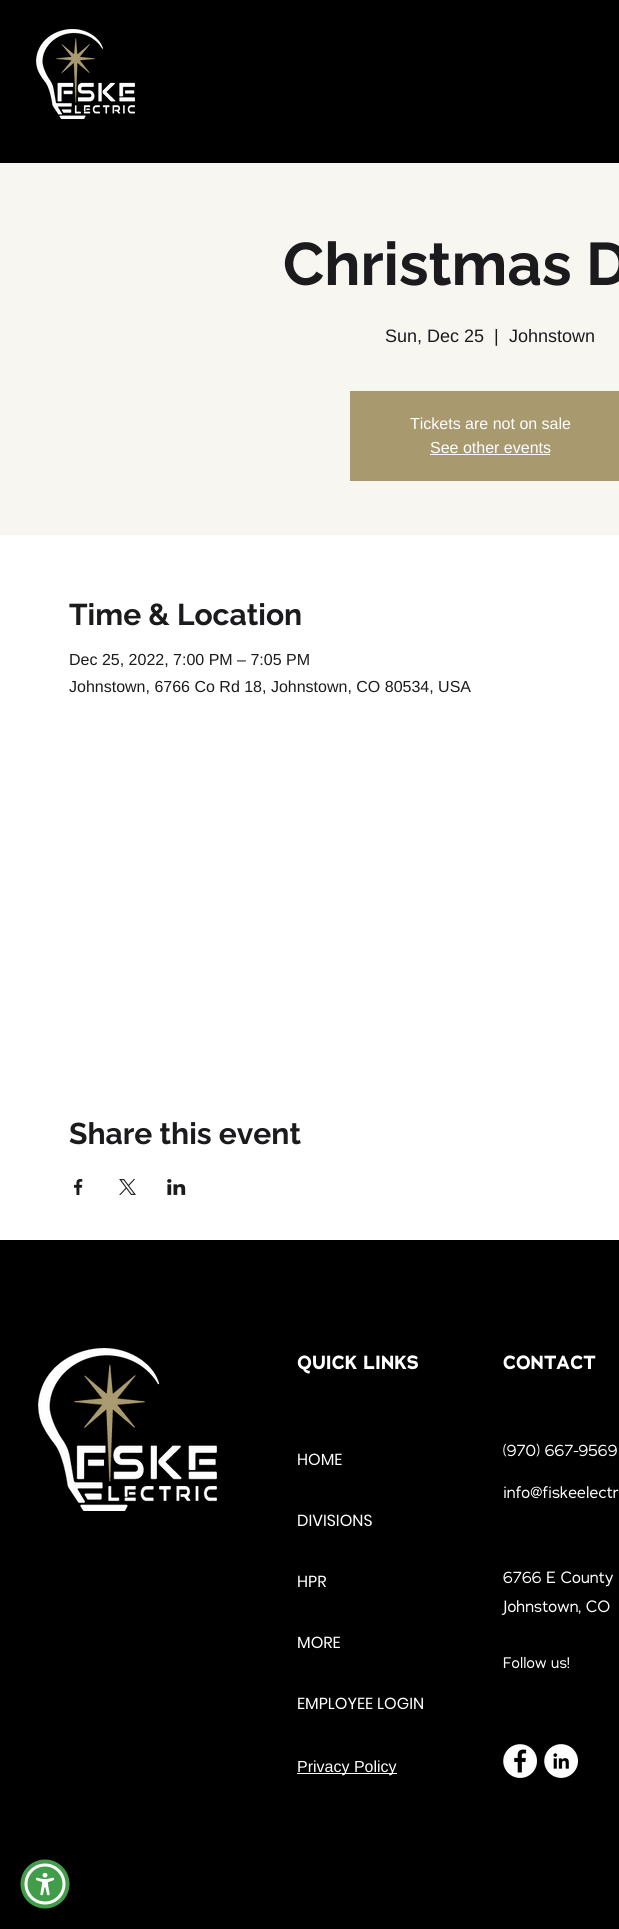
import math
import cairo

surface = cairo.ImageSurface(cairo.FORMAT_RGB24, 619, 1929)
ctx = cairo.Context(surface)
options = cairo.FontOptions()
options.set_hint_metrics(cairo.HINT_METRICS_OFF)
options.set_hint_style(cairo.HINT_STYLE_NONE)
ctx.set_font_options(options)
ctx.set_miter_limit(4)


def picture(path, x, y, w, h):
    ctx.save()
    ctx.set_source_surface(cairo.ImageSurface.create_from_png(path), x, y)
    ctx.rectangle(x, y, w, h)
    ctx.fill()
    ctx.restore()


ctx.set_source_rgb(0, 0, 0)
ctx.paint()
picture("img1.png", 36, 29, 99, 90)
ctx.set_source_rgb(0.969, 0.961, 0.945)
ctx.rectangle(0, 163, 619, 372)
ctx.fill()
ctx.select_font_face("Raleway", cairo.FONT_SLANT_NORMAL, cairo.FONT_WEIGHT_BOLD)
ctx.set_font_size(60)
ctx.set_source_rgb(0.106, 0.106, 0.118)
ctx.move_to(283, 285)
ctx.show_text("Christmas D")
ctx.select_font_face("Liberation Sans")
ctx.set_font_size(18)
ctx.move_to(385, 342)
ctx.show_text("Sun, Dec 25")
ctx.move_to(494, 342)
ctx.show_text("|")
ctx.move_to(509, 342)
ctx.show_text("Johnstown")
ctx.set_source_rgb(0.659, 0.6, 0.435)
ctx.rectangle(350, 391, 269, 90)
ctx.fill()
ctx.set_font_size(16)
ctx.set_source_rgb(1, 1, 1)
ctx.move_to(410, 429)
ctx.show_text("Tickets are not on sale")
ctx.move_to(430, 453)
ctx.show_text("See other events")
ctx.rectangle(430, 454, 120, 1)
ctx.fill()
ctx.rectangle(0, 535, 619, 705)
ctx.fill()
ctx.select_font_face("Raleway", cairo.FONT_SLANT_NORMAL, cairo.FONT_WEIGHT_BOLD)
ctx.set_font_size(30)
ctx.set_source_rgb(0.106, 0.106, 0.118)
ctx.move_to(69, 625)
ctx.show_text("Time & Location")
ctx.select_font_face("Liberation Sans")
ctx.set_font_size(16)
ctx.move_to(69, 665)
ctx.show_text("Dec 25, 2022, 7:00 PM – 7:05 PM")
ctx.move_to(69, 692)
ctx.show_text("Johnstown, 6766 Co Rd 18, Johnstown, CO 80534, USA")
ctx.select_font_face("Raleway", cairo.FONT_SLANT_NORMAL, cairo.FONT_WEIGHT_BOLD)
ctx.set_font_size(30)
ctx.move_to(69, 1144)
ctx.show_text("Share this event")
picture("img2.png", 74, 1179, 9, 16)
picture("img3.png", 119, 1179, 17, 16)
picture("img4.png", 167, 1179, 19, 16)
picture("img5.png", 38, 1348, 179, 163)
ctx.select_font_face("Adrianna", cairo.FONT_SLANT_NORMAL, cairo.FONT_WEIGHT_BOLD)
ctx.set_font_size(19)
ctx.set_source_rgb(1, 1, 1)
ctx.move_to(297, 1369)
ctx.show_text("QUICK LINKS")
ctx.move_to(503, 1369)
ctx.show_text("CONTACT")
ctx.select_font_face("Adrianna")
ctx.set_font_size(16)
ctx.move_to(503, 1456)
ctx.show_text("(970) 667-9569")
ctx.select_font_face("Poppins")
ctx.move_to(297, 1465)
ctx.show_text("HOME")
ctx.move_to(297, 1526)
ctx.show_text("DIVISIONS")
ctx.move_to(297, 1587)
ctx.show_text("HPR")
ctx.move_to(297, 1648)
ctx.show_text("MORE")
ctx.move_to(297, 1709)
ctx.show_text("EMPLOYEE LOGIN")
ctx.select_font_face("Adrianna")
ctx.move_to(503, 1498)
ctx.show_text("info@fiskeelectr")
ctx.move_to(503, 1583)
ctx.show_text("6766 E County")
ctx.move_to(503, 1612)
ctx.show_text("Johnstown, CO")
ctx.set_font_size(15)
ctx.move_to(503, 1668)
ctx.show_text("Follow us!")
ctx.rectangle(297, 1773, 100, 1)
ctx.fill()
ctx.select_font_face("Liberation Sans")
ctx.set_font_size(16)
ctx.move_to(297, 1772)
ctx.show_text("Privacy Policy")
picture("img6.png", 503, 1744, 34, 34)
picture("img7.png", 544, 1744, 34, 34)
ctx.set_source_rgb(0.255, 0.616, 0.29)
ctx.arc(45, 1884, 24.5, 0, 2 * math.pi)
ctx.fill()
ctx.set_source_rgb(1, 1, 1)
ctx.arc(45, 1884, 20.5, 0, 2 * math.pi)
ctx.fill()
ctx.set_source_rgb(0.255, 0.616, 0.29)
ctx.arc(45, 1884, 17.5, 0, 2 * math.pi)
ctx.fill()
picture("img8.png", 35, 1873, 20, 23)
surface.write_to_png("page.png")
